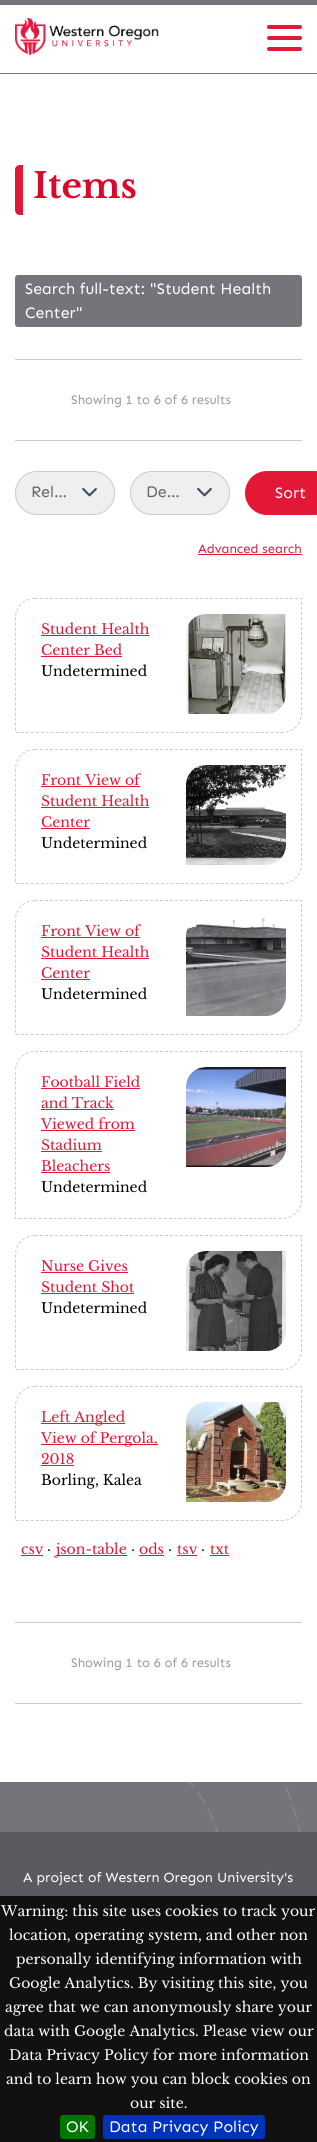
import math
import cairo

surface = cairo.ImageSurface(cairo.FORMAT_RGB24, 317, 2142)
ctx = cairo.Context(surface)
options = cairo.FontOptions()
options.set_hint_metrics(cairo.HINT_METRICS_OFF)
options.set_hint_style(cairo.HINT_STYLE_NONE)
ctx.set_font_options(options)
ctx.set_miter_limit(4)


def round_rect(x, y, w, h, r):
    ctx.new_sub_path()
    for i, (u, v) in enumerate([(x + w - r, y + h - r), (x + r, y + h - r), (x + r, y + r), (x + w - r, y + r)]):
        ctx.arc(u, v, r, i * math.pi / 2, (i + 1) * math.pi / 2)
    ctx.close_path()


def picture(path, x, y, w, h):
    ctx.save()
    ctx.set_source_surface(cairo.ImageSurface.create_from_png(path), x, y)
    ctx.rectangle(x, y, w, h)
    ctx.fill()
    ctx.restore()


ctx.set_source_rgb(1, 1, 1)
ctx.paint()
ctx.set_source_rgb(0.455, 0.459, 0.482)
ctx.rectangle(0, 0, 317, 5)
ctx.fill()
ctx.rectangle(0, 73, 317, 1)
ctx.fill()
picture("img1.png", 15, 17, 144, 39)
ctx.set_source_rgb(0.89, 0.094, 0.216)
round_rect(267, 25, 35, 4, 2)
ctx.fill()
round_rect(267, 36, 35, 4, 2)
ctx.fill()
round_rect(267, 47, 35, 4, 2)
ctx.fill()
ctx.new_path()
ctx.move_to(20, 165)
ctx.line_to(23, 165)
ctx.line_to(23, 215)
ctx.line_to(20, 215)
ctx.curve_to(17, 215, 15, 213, 15, 210)
ctx.line_to(15, 170)
ctx.curve_to(15, 167, 17, 165, 20, 165)
ctx.close_path()
ctx.fill()
ctx.select_font_face("Libre Baskerville", cairo.FONT_SLANT_NORMAL, cairo.FONT_WEIGHT_BOLD)
ctx.set_font_size(35)
ctx.set_source_rgb(0.859, 0.039, 0.161)
ctx.move_to(33, 198)
ctx.show_text("Items")
ctx.set_source_rgb(0.455, 0.459, 0.482)
round_rect(15, 275, 287, 52, 3)
ctx.fill()
ctx.select_font_face("Sen")
ctx.set_font_size(16)
ctx.set_source_rgb(1, 1, 1)
ctx.move_to(25, 294)
ctx.show_text("Search full-text: \"Student Health")
ctx.move_to(25, 318)
ctx.show_text("Center\"")
ctx.set_source_rgb(0.8, 0.8, 0.8)
ctx.rectangle(15, 359, 287, 1)
ctx.fill()
ctx.rectangle(15, 440, 287, 1)
ctx.fill()
ctx.set_font_size(13)
ctx.set_source_rgb(0.6, 0.6, 0.6)
ctx.move_to(71, 404)
ctx.show_text("Showing 1 to 6 of 6 results")
ctx.set_source_rgb(0.937, 0.937, 0.937)
round_rect(15, 471, 100, 44, 22)
ctx.fill()
picture("img2.png", 82, 487, 15, 10)
round_rect(15.5, 471.5, 99, 43, 21.5)
ctx.set_source_rgb(0.8, 0.8, 0.8)
ctx.set_line_width(1)
ctx.stroke()
ctx.set_font_size(16)
ctx.set_source_rgb(0.4, 0.4, 0.4)
ctx.move_to(31, 497)
ctx.show_text("Rel…")
ctx.set_source_rgb(0.937, 0.937, 0.937)
round_rect(130, 471, 100, 44, 22)
ctx.fill()
picture("img2.png", 197, 487, 15, 10)
round_rect(130.5, 471.5, 99, 43, 21.5)
ctx.set_source_rgb(0.8, 0.8, 0.8)
ctx.stroke()
ctx.set_source_rgb(0.4, 0.4, 0.4)
ctx.move_to(146, 497)
ctx.show_text("De…")
ctx.set_source_rgb(0.89, 0.094, 0.216)
round_rect(245, 471, 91, 44, 22)
ctx.fill()
ctx.set_source_rgb(1, 1, 1)
ctx.move_to(275, 498)
ctx.show_text("Sort")
ctx.set_font_size(13)
ctx.set_source_rgb(0.89, 0.094, 0.216)
ctx.move_to(198, 553)
ctx.show_text("Advanced search")
ctx.rectangle(198, 554, 104, 1)
ctx.fill()
ctx.new_path()
ctx.move_to(35, 598.5)
ctx.line_to(301.5, 598.5)
ctx.line_to(301.5, 713)
ctx.curve_to(301.5, 724, 293, 732.5, 282, 732.5)
ctx.line_to(15.5, 732.5)
ctx.line_to(15.5, 618)
ctx.curve_to(15.5, 607, 24, 598.5, 35, 598.5)
ctx.close_path()
ctx.set_source_rgb(0.8, 0.8, 0.8)
ctx.set_dash([3, 2])
ctx.stroke()
ctx.select_font_face("Libre Baskerville")
ctx.set_font_size(14)
ctx.set_source_rgb(0.89, 0.094, 0.216)
ctx.move_to(41, 634)
ctx.show_text("Student Health")
ctx.rectangle(41, 635, 108, 1)
ctx.fill()
ctx.move_to(41, 655)
ctx.show_text("Center Bed")
ctx.rectangle(41, 656, 81, 1)
ctx.fill()
ctx.set_source_rgb(0, 0, 0)
ctx.move_to(41, 676)
ctx.show_text("Undetermined")
picture("img3.png", 186, 614, 100, 100)
ctx.new_path()
ctx.move_to(35, 749.5)
ctx.line_to(301.5, 749.5)
ctx.line_to(301.5, 864)
ctx.curve_to(301.5, 875, 293, 883.5, 282, 883.5)
ctx.line_to(15.5, 883.5)
ctx.line_to(15.5, 769)
ctx.curve_to(15.5, 758, 24, 749.5, 35, 749.5)
ctx.close_path()
ctx.set_source_rgb(0.8, 0.8, 0.8)
ctx.stroke()
ctx.set_source_rgb(0.89, 0.094, 0.216)
ctx.move_to(41, 785)
ctx.show_text("Front View of")
ctx.rectangle(41, 786, 99, 1)
ctx.fill()
ctx.move_to(41, 806)
ctx.show_text("Student Health")
ctx.rectangle(41, 807, 108, 1)
ctx.fill()
ctx.move_to(41, 827)
ctx.show_text("Center")
ctx.rectangle(41, 828, 49, 1)
ctx.fill()
ctx.set_source_rgb(0, 0, 0)
ctx.move_to(41, 848)
ctx.show_text("Undetermined")
picture("img4.png", 186, 765, 100, 100)
ctx.new_path()
ctx.move_to(35, 900.5)
ctx.line_to(301.5, 900.5)
ctx.line_to(301.5, 1015)
ctx.curve_to(301.5, 1026, 293, 1034.5, 282, 1034.5)
ctx.line_to(15.5, 1034.5)
ctx.line_to(15.5, 920)
ctx.curve_to(15.5, 909, 24, 900.5, 35, 900.5)
ctx.close_path()
ctx.set_source_rgb(0.8, 0.8, 0.8)
ctx.stroke()
ctx.set_source_rgb(0.89, 0.094, 0.216)
ctx.move_to(41, 936)
ctx.show_text("Front View of")
ctx.rectangle(41, 937, 99, 1)
ctx.fill()
ctx.move_to(41, 957)
ctx.show_text("Student Health")
ctx.rectangle(41, 958, 108, 1)
ctx.fill()
ctx.move_to(41, 978)
ctx.show_text("Center")
ctx.rectangle(41, 979, 49, 1)
ctx.fill()
ctx.set_source_rgb(0, 0, 0)
ctx.move_to(41, 999)
ctx.show_text("Undetermined")
picture("img5.png", 186, 918, 100, 98)
ctx.new_path()
ctx.move_to(35, 1051.5)
ctx.line_to(301.5, 1051.5)
ctx.line_to(301.5, 1199)
ctx.curve_to(301.5, 1210, 293, 1218.5, 282, 1218.5)
ctx.line_to(15.5, 1218.5)
ctx.line_to(15.5, 1071)
ctx.curve_to(15.5, 1060, 24, 1051.5, 35, 1051.5)
ctx.close_path()
ctx.set_source_rgb(0.8, 0.8, 0.8)
ctx.stroke()
ctx.set_source_rgb(0.89, 0.094, 0.216)
ctx.move_to(41, 1087)
ctx.show_text("Football Field")
ctx.rectangle(41, 1088, 99, 1)
ctx.fill()
ctx.move_to(41, 1108)
ctx.show_text("and Track")
ctx.rectangle(41, 1109, 73, 1)
ctx.fill()
ctx.move_to(41, 1129)
ctx.show_text("Viewed from")
ctx.rectangle(41, 1130, 94, 1)
ctx.fill()
ctx.move_to(41, 1150)
ctx.show_text("Stadium")
ctx.rectangle(41, 1151, 61, 1)
ctx.fill()
ctx.move_to(41, 1171)
ctx.show_text("Bleachers")
ctx.rectangle(41, 1172, 69, 1)
ctx.fill()
ctx.set_source_rgb(0, 0, 0)
ctx.move_to(41, 1192)
ctx.show_text("Undetermined")
picture("img6.png", 186, 1067, 100, 100)
ctx.new_path()
ctx.move_to(35, 1235.5)
ctx.line_to(301.5, 1235.5)
ctx.line_to(301.5, 1350)
ctx.curve_to(301.5, 1361, 293, 1369.5, 282, 1369.5)
ctx.line_to(15.5, 1369.5)
ctx.line_to(15.5, 1255)
ctx.curve_to(15.5, 1244, 24, 1235.5, 35, 1235.5)
ctx.close_path()
ctx.set_source_rgb(0.8, 0.8, 0.8)
ctx.stroke()
ctx.set_source_rgb(0.89, 0.094, 0.216)
ctx.move_to(41, 1271)
ctx.show_text("Nurse Gives")
ctx.rectangle(41, 1272, 87, 1)
ctx.fill()
ctx.move_to(41, 1292)
ctx.show_text("Student Shot")
ctx.rectangle(41, 1293, 93, 1)
ctx.fill()
ctx.set_source_rgb(0, 0, 0)
ctx.move_to(41, 1313)
ctx.show_text("Undetermined")
picture("img7.png", 186, 1251, 100, 100)
ctx.new_path()
ctx.move_to(35, 1386.5)
ctx.line_to(301.5, 1386.5)
ctx.line_to(301.5, 1501)
ctx.curve_to(301.5, 1512, 293, 1520.5, 282, 1520.5)
ctx.line_to(15.5, 1520.5)
ctx.line_to(15.5, 1406)
ctx.curve_to(15.5, 1395, 24, 1386.5, 35, 1386.5)
ctx.close_path()
ctx.set_source_rgb(0.8, 0.8, 0.8)
ctx.stroke()
ctx.set_source_rgb(0.89, 0.094, 0.216)
ctx.rectangle(41, 1423, 84, 1)
ctx.fill()
ctx.move_to(41, 1422)
ctx.show_text("Left Angled")
ctx.rectangle(41, 1444, 117, 1)
ctx.fill()
ctx.move_to(41, 1443)
ctx.show_text("View of Pergola,")
ctx.move_to(41, 1464)
ctx.show_text("2018")
ctx.rectangle(41, 1465, 33, 1)
ctx.fill()
ctx.set_source_rgb(0, 0, 0)
ctx.move_to(41, 1485)
ctx.show_text("Borling, Kalea")
picture("img8.png", 186, 1402, 100, 100)
ctx.set_source_rgb(0.89, 0.094, 0.216)
ctx.move_to(21, 1554)
ctx.show_text("csv")
ctx.rectangle(21, 1555, 22, 1)
ctx.fill()
ctx.set_source_rgb(0, 0, 0)
ctx.move_to(47, 1554)
ctx.show_text("·")
ctx.set_source_rgb(0.89, 0.094, 0.216)
ctx.rectangle(56, 1555, 71, 1)
ctx.fill()
ctx.move_to(56, 1554)
ctx.show_text("json-table")
ctx.set_source_rgb(0, 0, 0)
ctx.move_to(131, 1554)
ctx.show_text("·")
ctx.set_source_rgb(0.89, 0.094, 0.216)
ctx.move_to(139, 1554)
ctx.show_text("ods")
ctx.rectangle(139, 1555, 25, 1)
ctx.fill()
ctx.set_source_rgb(0, 0, 0)
ctx.move_to(168, 1554)
ctx.show_text("·")
ctx.set_source_rgb(0.89, 0.094, 0.216)
ctx.move_to(177, 1554)
ctx.show_text("tsv")
ctx.rectangle(177, 1555, 20, 1)
ctx.fill()
ctx.set_source_rgb(0, 0, 0)
ctx.move_to(201, 1554)
ctx.show_text("·")
ctx.set_source_rgb(0.89, 0.094, 0.216)
ctx.move_to(210, 1554)
ctx.show_text("txt")
ctx.rectangle(210, 1555, 19, 1)
ctx.fill()
ctx.set_source_rgb(0.8, 0.8, 0.8)
ctx.rectangle(15, 1622, 287, 1)
ctx.fill()
ctx.rectangle(15, 1703, 287, 1)
ctx.fill()
ctx.select_font_face("Sen")
ctx.set_font_size(13)
ctx.set_source_rgb(0.6, 0.6, 0.6)
ctx.move_to(71, 1667)
ctx.show_text("Showing 1 to 6 of 6 results")
ctx.set_source_rgb(0.455, 0.459, 0.482)
ctx.rectangle(0, 1782, 317, 50)
ctx.fill()
picture("img9.png", 188, 1782, 113, 50)
ctx.set_source_rgb(0.353, 0.357, 0.38)
ctx.rectangle(0, 1832, 317, 64)
ctx.fill()
ctx.set_font_size(14)
ctx.set_source_rgb(1, 1, 1)
ctx.move_to(23, 1882)
ctx.show_text("A project of Western Oregon University's")
ctx.set_source_rgb(0.067, 0.067, 0.067)
ctx.rectangle(0, 1896, 317, 246)
ctx.fill()
ctx.select_font_face("Libre Baskerville")
ctx.set_source_rgb(1, 1, 1)
ctx.move_to(1, 1916)
ctx.show_text("Warning: this site uses cookies to track your")
ctx.move_to(9, 1940)
ctx.show_text("location, operating system, and other non")
ctx.move_to(16, 1964)
ctx.show_text("personally identifying information with")
ctx.move_to(9, 1988)
ctx.show_text("Google Analytics. By visiting this site, you")
ctx.move_to(5, 2012)
ctx.show_text("agree that we can anonymously share your")
ctx.move_to(4, 2036)
ctx.show_text("data with Google Analytics. Please view our")
ctx.move_to(9, 2060)
ctx.show_text("Data Privacy Policy for more information")
ctx.move_to(6, 2084)
ctx.show_text("and to learn how you can block cookies on")
ctx.move_to(130, 2108)
ctx.show_text("our site.")
ctx.set_source_rgb(0, 0.467, 0)
round_rect(60, 2115, 35, 24, 3)
ctx.fill()
ctx.select_font_face("Sen")
ctx.set_font_size(16)
ctx.set_source_rgb(1, 1, 1)
ctx.move_to(66, 2132)
ctx.show_text("OK")
ctx.set_source_rgb(0, 0.2, 0.733)
round_rect(103, 2115, 162, 24, 3)
ctx.fill()
ctx.set_source_rgb(1, 1, 1)
ctx.move_to(109, 2132)
ctx.show_text("Data Privacy Policy")
surface.write_to_png("page.png")
